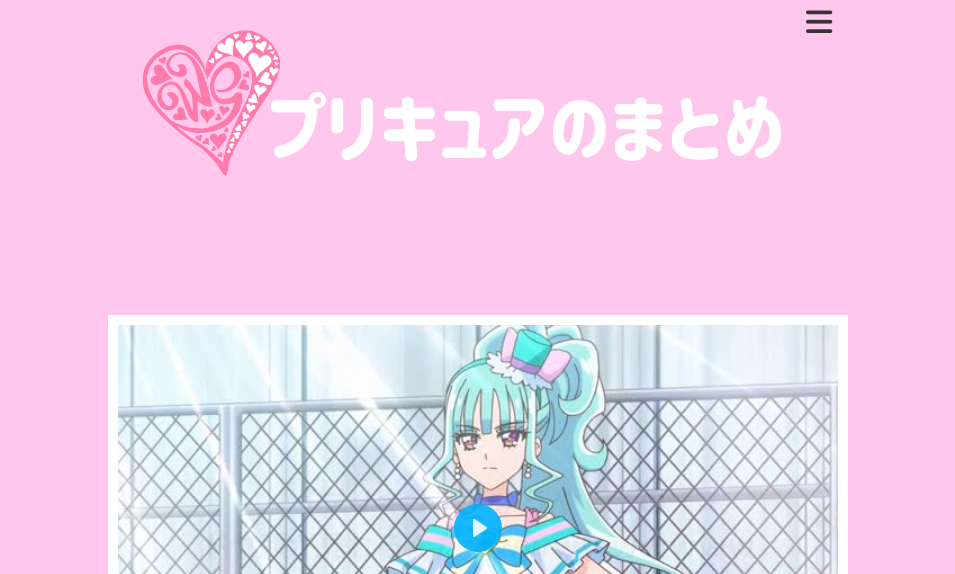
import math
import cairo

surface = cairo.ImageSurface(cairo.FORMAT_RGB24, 955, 574)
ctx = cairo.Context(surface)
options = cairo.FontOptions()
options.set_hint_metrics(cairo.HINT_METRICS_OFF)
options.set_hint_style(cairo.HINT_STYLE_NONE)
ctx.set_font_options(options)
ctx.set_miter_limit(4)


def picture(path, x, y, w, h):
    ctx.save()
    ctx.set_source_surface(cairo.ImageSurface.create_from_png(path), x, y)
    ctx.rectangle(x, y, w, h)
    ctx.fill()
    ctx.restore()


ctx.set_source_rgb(1, 0.78, 0.925)
ctx.paint()
picture("img1.png", 806, 10, 27, 23)
picture("img2.png", 143, 30, 638, 146)
ctx.set_source_rgb(1, 1, 1)
ctx.rectangle(108, 315, 740, 259)
ctx.fill()
picture("img3.png", 118, 325, 720, 249)
ctx.set_source_rgba(0, 0.698, 1, 0.9)
ctx.arc(478, 528, 24, 0, 2 * math.pi)
ctx.fill()
picture("img4.png", 473, 519, 14, 18)
surface.write_to_png("page.png")
